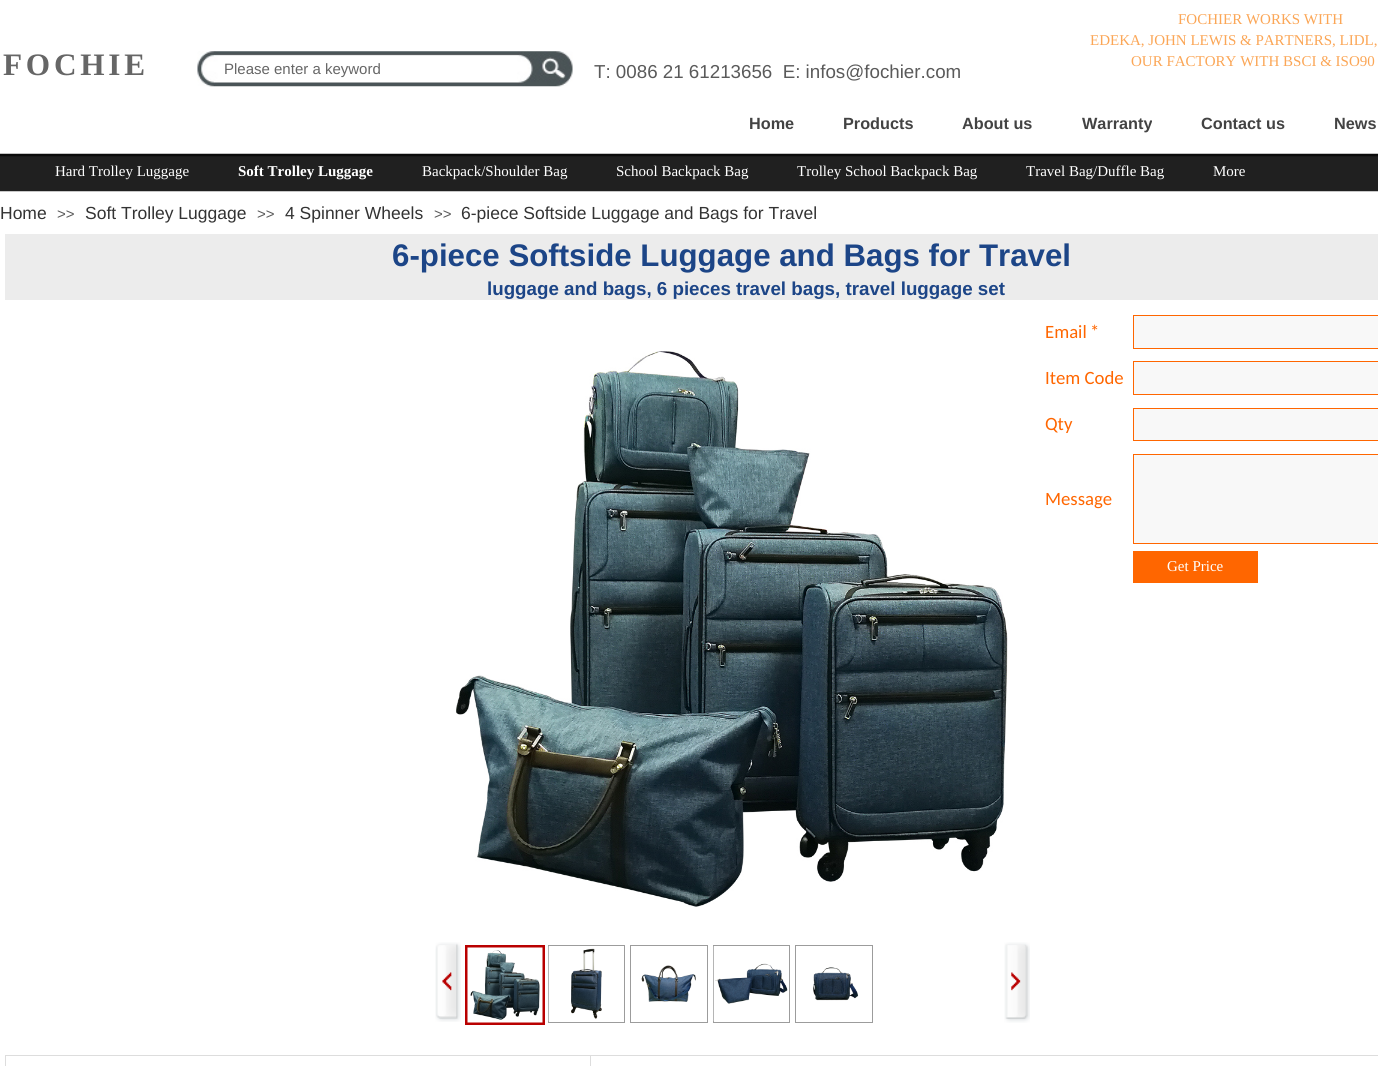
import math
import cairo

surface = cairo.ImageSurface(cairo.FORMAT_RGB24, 1378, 1066)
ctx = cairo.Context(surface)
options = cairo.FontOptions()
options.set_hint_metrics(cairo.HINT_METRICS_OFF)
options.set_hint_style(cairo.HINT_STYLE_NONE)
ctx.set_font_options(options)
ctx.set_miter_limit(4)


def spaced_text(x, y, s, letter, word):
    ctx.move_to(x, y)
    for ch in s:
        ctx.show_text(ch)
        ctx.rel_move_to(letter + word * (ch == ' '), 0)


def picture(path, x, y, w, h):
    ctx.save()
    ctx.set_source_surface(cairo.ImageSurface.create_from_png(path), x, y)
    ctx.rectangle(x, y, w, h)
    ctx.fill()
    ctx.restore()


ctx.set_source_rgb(1, 1, 1)
ctx.paint()
ctx.select_font_face("Liberation Serif")
ctx.set_font_size(15)
ctx.set_source_rgb(0.984, 0.651, 0.337)
ctx.move_to(1178, 24)
ctx.show_text("FOCHIER WORKS WITH")
ctx.move_to(1090, 45)
ctx.show_text("EDEKA, JOHN LEWIS & PARTNERS, LIDL,")
ctx.move_to(1131, 66)
ctx.show_text("OUR FACTORY WITH BSCI & ISO90")
ctx.select_font_face("Liberation Serif", cairo.FONT_SLANT_NORMAL, cairo.FONT_WEIGHT_BOLD)
ctx.set_font_size(31.25)
ctx.set_source_rgb(0.4, 0.4, 0.4)
spaced_text(3, 75, "FOCHIE", 3.75, 0)
ctx.select_font_face("Liberation Sans", cairo.FONT_SLANT_NORMAL, cairo.FONT_WEIGHT_BOLD)
ctx.set_font_size(16.25)
ctx.set_source_rgb(0.263, 0.263, 0.263)
ctx.move_to(749, 129)
ctx.show_text("Home")
ctx.move_to(843, 129)
ctx.show_text("Products")
ctx.move_to(962, 129)
ctx.show_text("About us")
ctx.move_to(1082, 129)
ctx.show_text("Warranty")
ctx.move_to(1201, 129)
ctx.show_text("Contact us")
ctx.move_to(1334, 129)
ctx.show_text("News")
picture("img1.png", 197, 51, 376, 36)
ctx.set_source_rgb(1, 1, 1)
ctx.rectangle(518, 75, 2, 5)
ctx.fill()
ctx.select_font_face("Liberation Sans")
ctx.set_font_size(15)
ctx.set_source_rgb(0.4, 0.4, 0.4)
ctx.move_to(224, 74)
ctx.show_text("Please enter a keyword")
ctx.set_font_size(18.75)
ctx.set_source_rgb(0.353, 0.353, 0.353)
ctx.move_to(594, 78)
ctx.show_text("T: 0086 21 61213656  E: infos@fochier.com")
picture("img2.png", 0, 153, 1378, 39)
ctx.select_font_face("Liberation Serif")
ctx.set_font_size(15)
ctx.set_source_rgb(1, 1, 1)
ctx.move_to(55, 176)
ctx.show_text("Hard Trolley Luggage")
ctx.select_font_face("Liberation Serif", cairo.FONT_SLANT_NORMAL, cairo.FONT_WEIGHT_BOLD)
ctx.move_to(238, 176)
ctx.show_text("Soft Trolley Luggage")
ctx.select_font_face("Liberation Serif")
ctx.move_to(422, 176)
ctx.show_text("Backpack/Shoulder Bag")
ctx.move_to(616, 176)
ctx.show_text("School Backpack Bag")
ctx.move_to(797, 176)
ctx.show_text("Trolley School Backpack Bag")
ctx.move_to(1026, 176)
ctx.show_text("Travel Bag/Duffle Bag")
ctx.move_to(1213, 176)
ctx.show_text("More")
ctx.select_font_face("Liberation Sans")
ctx.set_font_size(17.5)
ctx.set_source_rgb(0.2, 0.2, 0.2)
ctx.move_to(0, 219)
ctx.show_text("Home")
ctx.set_font_size(15)
ctx.set_source_rgb(0.353, 0.353, 0.353)
ctx.move_to(57, 219)
ctx.show_text(">>")
ctx.set_font_size(17.5)
ctx.set_source_rgb(0.2, 0.2, 0.2)
ctx.move_to(85, 219)
ctx.show_text("Soft Trolley Luggage")
ctx.set_font_size(15)
ctx.set_source_rgb(0.353, 0.353, 0.353)
ctx.move_to(257, 219)
ctx.show_text(">>")
ctx.set_font_size(17.5)
ctx.set_source_rgb(0.2, 0.2, 0.2)
ctx.move_to(285, 219)
ctx.show_text("4 Spinner Wheels")
ctx.set_font_size(15)
ctx.set_source_rgb(0.353, 0.353, 0.353)
ctx.move_to(434, 219)
ctx.show_text(">>")
ctx.set_font_size(17.5)
ctx.set_source_rgb(0.2, 0.2, 0.2)
ctx.move_to(461, 219)
ctx.show_text("6-piece Softside Luggage and Bags for Travel")
ctx.set_source_rgb(0.925, 0.922, 0.922)
ctx.rectangle(5, 234, 1373, 66)
ctx.fill()
ctx.select_font_face("Liberation Sans", cairo.FONT_SLANT_NORMAL, cairo.FONT_WEIGHT_BOLD)
ctx.set_font_size(31.25)
ctx.set_source_rgb(0.11, 0.271, 0.529)
ctx.move_to(392, 266)
ctx.show_text("6-piece Softside Luggage and Bags for Travel")
ctx.set_font_size(18.75)
ctx.move_to(487, 295)
ctx.show_text("luggage and bags, 6 pieces travel bags, travel luggage set")
picture("img3.png", 456, 351, 552, 556)
picture("img4.png", 435, 942, 26, 80)
ctx.rectangle(466.5, 946.5, 77, 77)
ctx.set_source_rgb(0.725, 0, 0)
ctx.set_line_width(3)
ctx.stroke()
picture("img5.png", 467, 947, 76, 76)
ctx.rectangle(548.5, 945.5, 76, 77)
ctx.set_source_rgb(0.612, 0.612, 0.612)
ctx.set_line_width(1)
ctx.stroke()
picture("img6.png", 548, 946, 54, 76)
ctx.rectangle(630.5, 945.5, 77, 77)
ctx.stroke()
picture("img7.png", 641, 965, 55, 37)
ctx.rectangle(713.5, 945.5, 76, 77)
ctx.stroke()
picture("img8.png", 713, 946, 75, 76)
ctx.rectangle(795.5, 945.5, 77, 77)
ctx.stroke()
picture("img9.png", 813, 967, 46, 34)
picture("img10.png", 1004, 942, 26, 81)
ctx.set_source_rgb(0.867, 0.867, 0.867)
ctx.rectangle(590, 1055, 788, 1)
ctx.fill()
ctx.rectangle(590, 1055, 1, 11)
ctx.fill()
ctx.rectangle(5, 1055, 586, 1)
ctx.fill()
ctx.rectangle(5, 1055, 1, 11)
ctx.fill()
ctx.select_font_face("Carlito")
ctx.set_source_rgb(1, 0.4, 0)
ctx.move_to(1045, 338)
ctx.show_text("Email")
ctx.move_to(1090, 338)
ctx.show_text("*")
ctx.set_source_rgb(0.969, 0.969, 0.969)
ctx.rectangle(1133.5, 315.5, 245, 33)
ctx.fill_preserve()
ctx.set_source_rgb(1, 0.4, 0)
ctx.stroke()
ctx.move_to(1045, 384)
ctx.show_text("Item Code")
ctx.set_source_rgb(0.969, 0.969, 0.969)
ctx.rectangle(1133.5, 361.5, 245, 33)
ctx.fill_preserve()
ctx.set_source_rgb(1, 0.4, 0)
ctx.stroke()
ctx.move_to(1045, 430)
ctx.show_text("Qty")
ctx.set_source_rgb(0.969, 0.969, 0.969)
ctx.rectangle(1133.5, 408.5, 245, 32)
ctx.fill_preserve()
ctx.set_source_rgb(1, 0.4, 0)
ctx.stroke()
ctx.move_to(1045, 505)
ctx.show_text("Message")
ctx.set_source_rgb(0.969, 0.969, 0.969)
ctx.rectangle(1133.5, 454.5, 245, 89)
ctx.fill_preserve()
ctx.set_source_rgb(1, 0.4, 0)
ctx.stroke()
ctx.rectangle(1133, 551, 125, 32)
ctx.fill()
ctx.select_font_face("Liberation Serif")
ctx.set_font_size(15)
ctx.set_source_rgb(1, 1, 1)
ctx.move_to(1167, 571)
ctx.show_text("Get Price")
surface.write_to_png("page.png")
